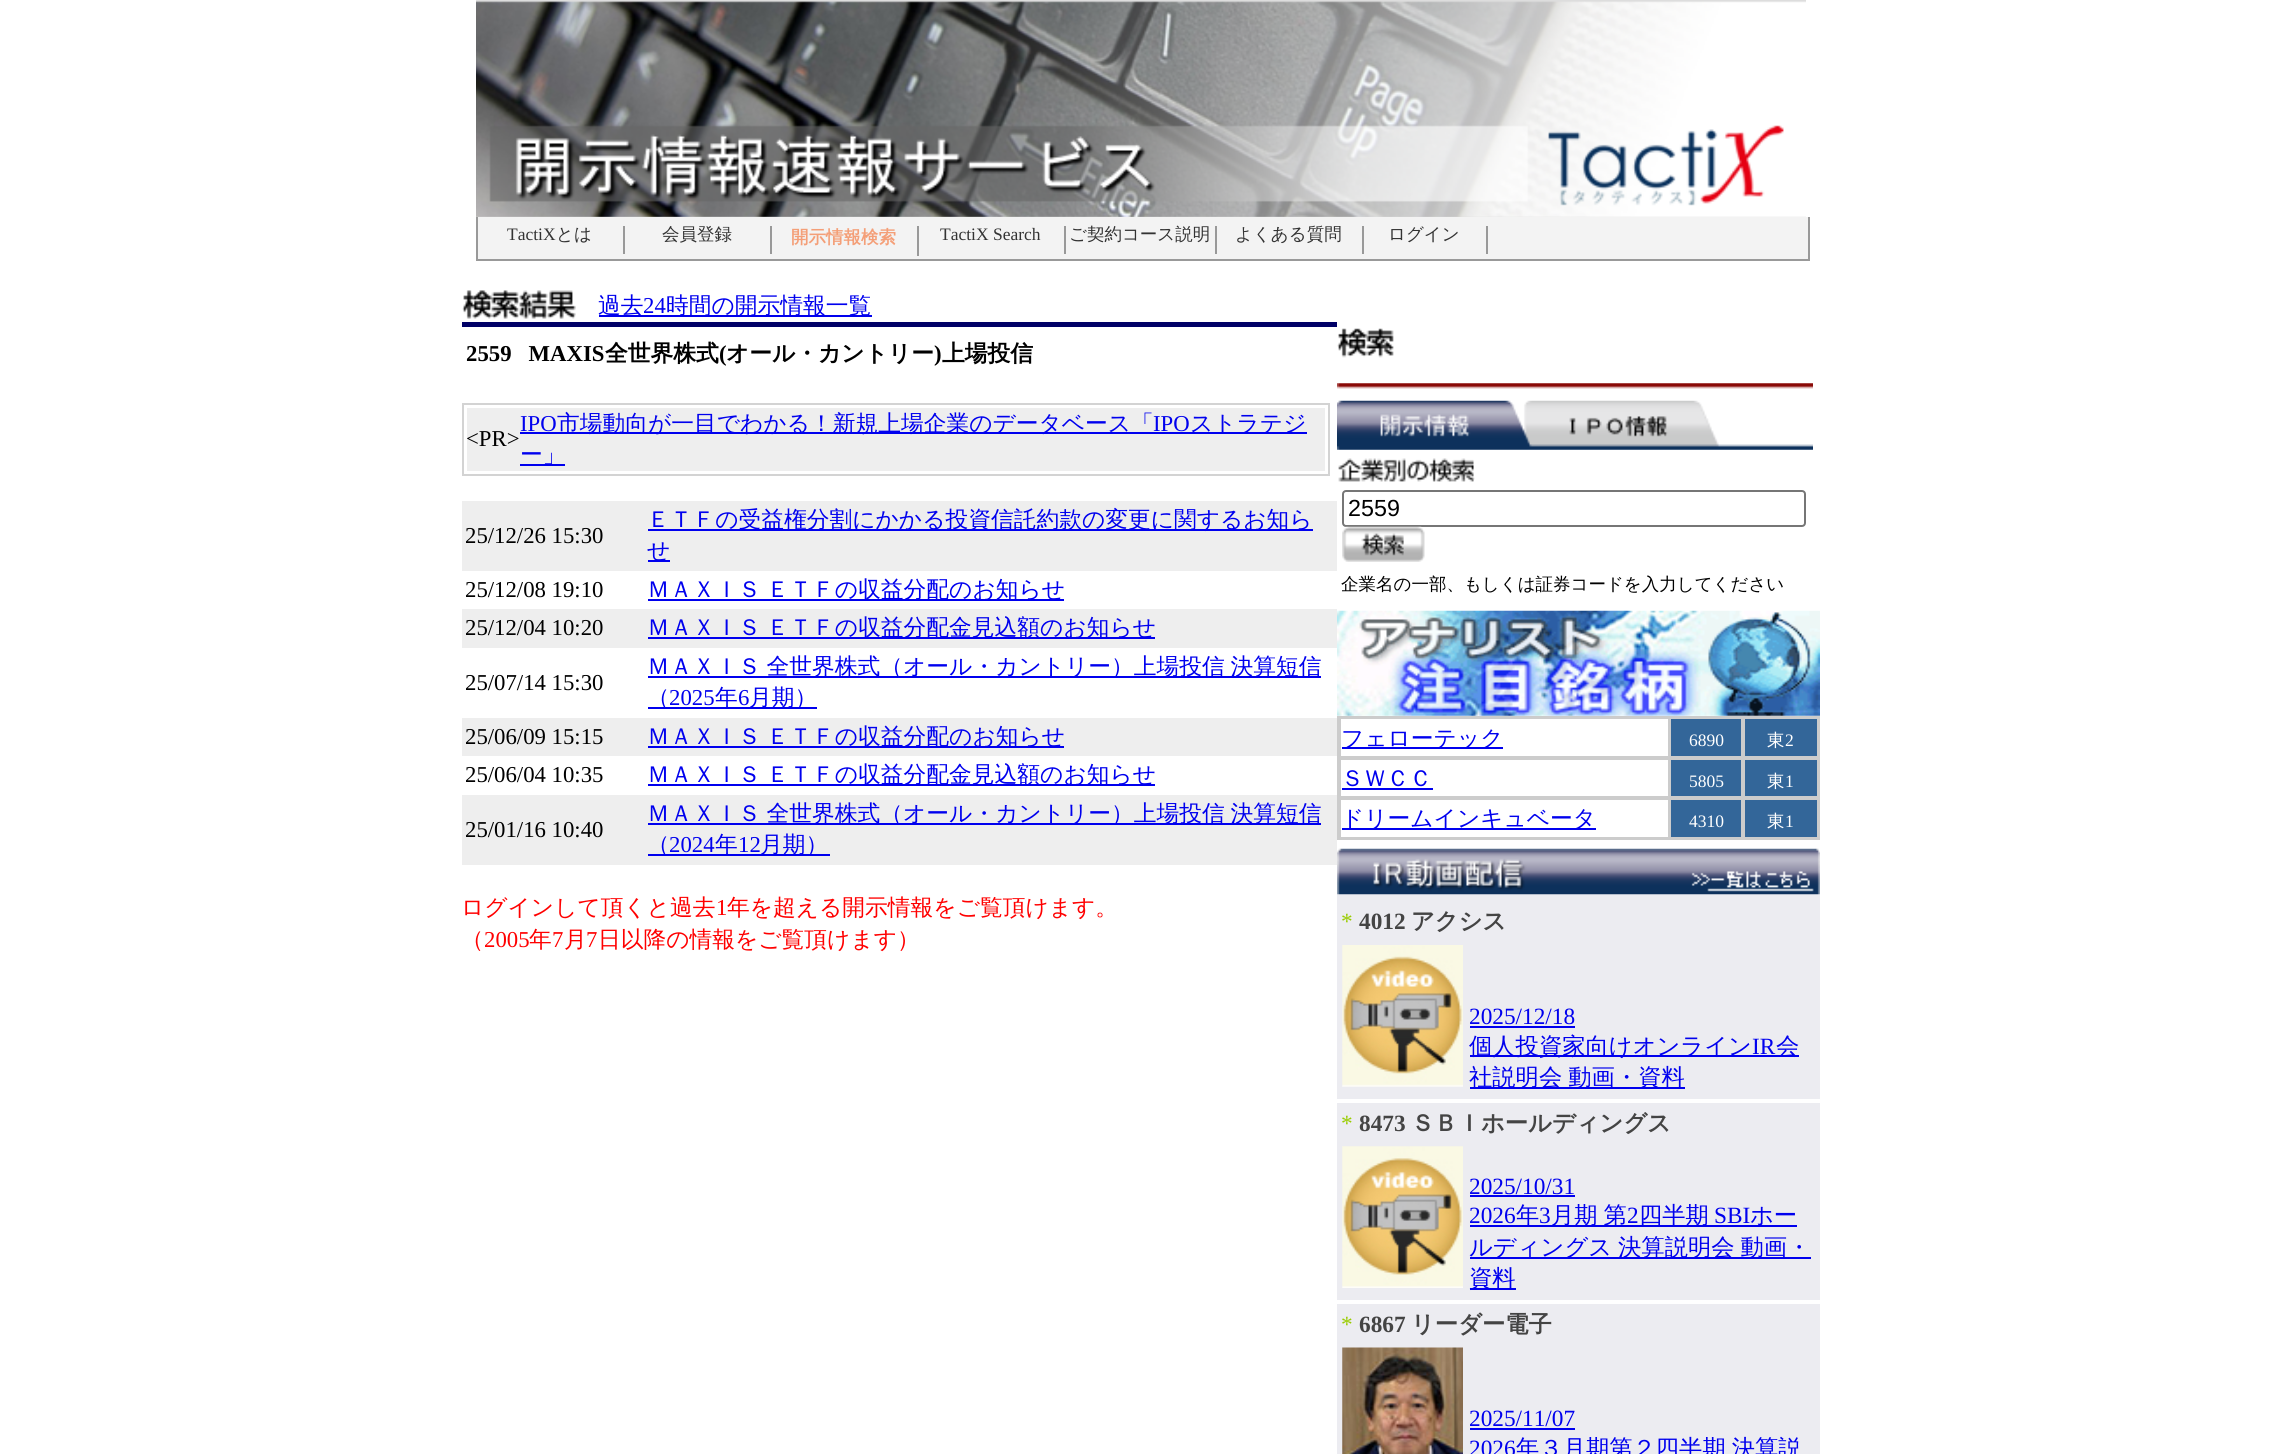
import math
import cairo

surface = cairo.ImageSurface(cairo.FORMAT_RGB24, 2280, 1454)
ctx = cairo.Context(surface)
options = cairo.FontOptions()
options.set_hint_metrics(cairo.HINT_METRICS_OFF)
options.set_hint_style(cairo.HINT_STYLE_NONE)
ctx.set_font_options(options)
ctx.set_miter_limit(4)


def spaced_text(x, y, s, letter, word):
    ctx.move_to(x, y)
    for ch in s:
        ctx.show_text(ch)
        ctx.rel_move_to(letter + word * (ch == ' '), 0)


def round_rect(x, y, w, h, r):
    ctx.new_sub_path()
    for i, (u, v) in enumerate([(x + w - r, y + h - r), (x + r, y + h - r), (x + r, y + r), (x + w - r, y + r)]):
        ctx.arc(u, v, r, i * math.pi / 2, (i + 1) * math.pi / 2)
    ctx.close_path()


def picture(path, x, y, w, h):
    ctx.save()
    ctx.set_source_surface(cairo.ImageSurface.create_from_png(path), x, y)
    ctx.rectangle(x, y, w, h)
    ctx.fill()
    ctx.restore()


ctx.set_source_rgb(1, 1, 1)
ctx.paint()
picture("img1.png", 476, 0, 1330, 217)
ctx.set_source_rgb(0.953, 0.953, 0.953)
ctx.rectangle(478, 217, 1330, 42)
ctx.fill()
ctx.set_source_rgb(0.6, 0.6, 0.6)
ctx.rectangle(1808, 217, 2, 44)
ctx.fill()
ctx.rectangle(476, 259, 1334, 2)
ctx.fill()
ctx.rectangle(476, 217, 2, 44)
ctx.fill()
ctx.rectangle(623, 226, 2, 28)
ctx.fill()
ctx.select_font_face("Liberation Serif")
ctx.set_font_size(17.5)
ctx.set_source_rgb(0.2, 0.2, 0.2)
ctx.move_to(507, 240)
ctx.show_text("TactiX")
ctx.select_font_face("WenQuanYi Zen Hei Medium")
ctx.move_to(556, 240)
ctx.show_text("とは")
ctx.set_source_rgb(0.6, 0.6, 0.6)
ctx.rectangle(770, 226, 2, 28)
ctx.fill()
ctx.set_source_rgb(0.2, 0.2, 0.2)
ctx.move_to(662, 240)
ctx.show_text("会員登録")
ctx.set_source_rgb(0.6, 0.6, 0.6)
ctx.rectangle(917, 226, 2, 30)
ctx.fill()
ctx.select_font_face("WenQuanYi Zen Hei", cairo.FONT_SLANT_NORMAL, cairo.FONT_WEIGHT_BOLD)
ctx.set_source_rgb(0.957, 0.624, 0.471)
ctx.move_to(791, 243)
ctx.show_text("開示情報検索")
ctx.set_source_rgb(0.6, 0.6, 0.6)
ctx.rectangle(1064, 226, 2, 28)
ctx.fill()
ctx.select_font_face("Liberation Serif")
ctx.set_source_rgb(0.2, 0.2, 0.2)
ctx.move_to(940, 240)
ctx.show_text("TactiX Search")
ctx.set_source_rgb(0.6, 0.6, 0.6)
ctx.rectangle(1215, 226, 2, 28)
ctx.fill()
ctx.select_font_face("WenQuanYi Zen Hei Medium")
ctx.set_source_rgb(0.2, 0.2, 0.2)
ctx.move_to(1069, 240)
ctx.show_text("ご契約コース説明")
ctx.set_source_rgb(0.6, 0.6, 0.6)
ctx.rectangle(1362, 226, 2, 28)
ctx.fill()
ctx.set_source_rgb(0.2, 0.2, 0.2)
ctx.move_to(1235, 240)
ctx.show_text("よくある質問")
ctx.set_source_rgb(0.6, 0.6, 0.6)
ctx.rectangle(1486, 226, 2, 28)
ctx.fill()
ctx.set_source_rgb(0.2, 0.2, 0.2)
ctx.move_to(1388, 240)
ctx.show_text("ログイン")
picture("img2.png", 462, 290, 114, 29)
ctx.set_source_rgb(0, 0, 0.933)
ctx.rectangle(599, 315, 273, 2)
ctx.fill()
ctx.set_font_size(22.75)
ctx.move_to(598, 313)
ctx.show_text("過去")
ctx.select_font_face("Liberation Serif")
ctx.move_to(643, 313)
ctx.show_text("24")
ctx.select_font_face("WenQuanYi Zen Hei Medium")
ctx.move_to(666, 313)
ctx.show_text("時間の開示情報一覧")
ctx.set_source_rgb(0, 0, 0.4)
ctx.rectangle(462, 322, 875, 5)
ctx.fill()
ctx.select_font_face("Liberation Serif", cairo.FONT_SLANT_NORMAL, cairo.FONT_WEIGHT_BOLD)
ctx.set_source_rgb(0, 0, 0)
ctx.move_to(466, 361)
ctx.show_text("2559   MAXIS")
ctx.select_font_face("WenQuanYi Zen Hei", cairo.FONT_SLANT_NORMAL, cairo.FONT_WEIGHT_BOLD)
ctx.move_to(605, 361)
ctx.show_text("全世界株式")
ctx.select_font_face("Liberation Serif", cairo.FONT_SLANT_NORMAL, cairo.FONT_WEIGHT_BOLD)
ctx.move_to(719, 361)
ctx.show_text("(")
ctx.select_font_face("WenQuanYi Zen Hei", cairo.FONT_SLANT_NORMAL, cairo.FONT_WEIGHT_BOLD)
ctx.move_to(726, 361)
ctx.show_text("オール・カントリー")
ctx.select_font_face("Liberation Serif", cairo.FONT_SLANT_NORMAL, cairo.FONT_WEIGHT_BOLD)
ctx.move_to(934, 361)
ctx.show_text(")")
ctx.select_font_face("WenQuanYi Zen Hei", cairo.FONT_SLANT_NORMAL, cairo.FONT_WEIGHT_BOLD)
ctx.move_to(942, 361)
ctx.show_text("上場投信")
ctx.rectangle(463, 404, 866, 71)
ctx.set_source_rgb(0.827, 0.827, 0.827)
ctx.stroke()
ctx.set_source_rgb(0.933, 0.933, 0.933)
ctx.rectangle(467, 408, 858, 63)
ctx.fill()
ctx.select_font_face("Liberation Serif")
ctx.set_source_rgb(0, 0, 0)
ctx.move_to(466, 446)
ctx.show_text("<PR>")
ctx.set_source_rgb(0, 0, 0.933)
ctx.move_to(520, 431)
ctx.show_text("IPO")
ctx.rectangle(520, 432, 787, 2)
ctx.fill()
ctx.select_font_face("WenQuanYi Zen Hei Medium")
ctx.move_to(557, 431)
ctx.show_text("市場動向が一目でわかる！新規上場企業のデータベース「")
ctx.select_font_face("Liberation Serif")
ctx.move_to(1153, 431)
ctx.show_text("IPO")
ctx.select_font_face("WenQuanYi Zen Hei Medium")
ctx.move_to(1190, 431)
ctx.show_text("ストラテジ")
ctx.rectangle(520, 464, 45, 2)
ctx.fill()
ctx.move_to(520, 462)
ctx.show_text("ー」")
ctx.set_source_rgb(0.933, 0.933, 0.933)
ctx.rectangle(462, 501, 875, 70)
ctx.fill()
ctx.select_font_face("Liberation Serif")
ctx.set_source_rgb(0, 0, 0)
ctx.move_to(465, 543)
ctx.show_text("25/12/26 15:30")
ctx.set_source_rgb(0, 0, 0.933)
ctx.rectangle(648, 529, 665, 2)
ctx.fill()
ctx.select_font_face("WenQuanYi Zen Hei Medium")
ctx.move_to(647, 527)
ctx.show_text("ＥＴＦの受益権分割にかかる投資信託約款の変更に関するお知ら")
ctx.rectangle(648, 560, 22, 2)
ctx.fill()
ctx.move_to(647, 558)
ctx.show_text("せ")
ctx.select_font_face("Liberation Serif")
ctx.set_source_rgb(0, 0, 0)
ctx.move_to(465, 597)
ctx.show_text("25/12/08 19:10")
ctx.set_source_rgb(0, 0, 0.933)
ctx.rectangle(648, 599, 416, 2)
ctx.fill()
ctx.select_font_face("WenQuanYi Zen Hei Medium")
spaced_text(647, 597, "ＭＡＸＩＳ ＥＴＦの収益分配のお知らせ", 0, -1)
ctx.set_source_rgb(0.933, 0.933, 0.933)
ctx.rectangle(462, 609, 875, 39)
ctx.fill()
ctx.select_font_face("Liberation Serif")
ctx.set_source_rgb(0, 0, 0)
ctx.move_to(465, 635)
ctx.show_text("25/12/04 10:20")
ctx.set_source_rgb(0, 0, 0.933)
ctx.rectangle(648, 637, 507, 2)
ctx.fill()
ctx.select_font_face("WenQuanYi Zen Hei Medium")
spaced_text(647, 635, "ＭＡＸＩＳ ＥＴＦの収益分配金見込額のお知らせ", 0, -1)
ctx.select_font_face("Liberation Serif")
ctx.set_source_rgb(0, 0, 0)
ctx.move_to(465, 690)
ctx.show_text("25/07/14 15:30")
ctx.set_source_rgb(0, 0, 0.933)
ctx.rectangle(648, 676, 673, 2)
ctx.fill()
ctx.select_font_face("WenQuanYi Zen Hei Medium")
spaced_text(647, 674, "ＭＡＸＩＳ 全世界株式（オール・カントリー）上場投信 決算短信", 0, -1)
ctx.rectangle(648, 707, 169, 2)
ctx.fill()
ctx.move_to(647, 705)
ctx.show_text("（")
ctx.select_font_face("Liberation Serif")
ctx.move_to(669, 705)
ctx.show_text("2025")
ctx.select_font_face("WenQuanYi Zen Hei Medium")
ctx.move_to(715, 705)
ctx.show_text("年")
ctx.select_font_face("Liberation Serif")
ctx.move_to(738, 705)
ctx.show_text("6")
ctx.select_font_face("WenQuanYi Zen Hei Medium")
ctx.move_to(749, 705)
ctx.show_text("月期）")
ctx.set_source_rgb(0.933, 0.933, 0.933)
ctx.rectangle(462, 718, 875, 38)
ctx.fill()
ctx.select_font_face("Liberation Serif")
ctx.set_source_rgb(0, 0, 0)
ctx.move_to(465, 744)
ctx.show_text("25/06/09 15:15")
ctx.set_source_rgb(0, 0, 0.933)
ctx.rectangle(648, 746, 416, 2)
ctx.fill()
ctx.select_font_face("WenQuanYi Zen Hei Medium")
spaced_text(647, 744, "ＭＡＸＩＳ ＥＴＦの収益分配のお知らせ", 0, -1)
ctx.select_font_face("Liberation Serif")
ctx.set_source_rgb(0, 0, 0)
ctx.move_to(465, 782)
ctx.show_text("25/06/04 10:35")
ctx.set_source_rgb(0, 0, 0.933)
ctx.rectangle(648, 784, 507, 2)
ctx.fill()
ctx.select_font_face("WenQuanYi Zen Hei Medium")
spaced_text(647, 782, "ＭＡＸＩＳ ＥＴＦの収益分配金見込額のお知らせ", 0, -1)
ctx.set_source_rgb(0.933, 0.933, 0.933)
ctx.rectangle(462, 795, 875, 70)
ctx.fill()
ctx.select_font_face("Liberation Serif")
ctx.set_source_rgb(0, 0, 0)
ctx.move_to(465, 837)
ctx.show_text("25/01/16 10:40")
ctx.set_source_rgb(0, 0, 0.933)
ctx.rectangle(648, 823, 673, 2)
ctx.fill()
ctx.select_font_face("WenQuanYi Zen Hei Medium")
spaced_text(647, 821, "ＭＡＸＩＳ 全世界株式（オール・カントリー）上場投信 決算短信", 0, -1)
ctx.rectangle(648, 854, 182, 2)
ctx.fill()
ctx.move_to(647, 852)
ctx.show_text("（")
ctx.select_font_face("Liberation Serif")
ctx.move_to(669, 852)
ctx.show_text("2024")
ctx.select_font_face("WenQuanYi Zen Hei Medium")
ctx.move_to(715, 852)
ctx.show_text("年")
ctx.select_font_face("Liberation Serif")
ctx.move_to(738, 852)
ctx.show_text("12")
ctx.select_font_face("WenQuanYi Zen Hei Medium")
ctx.move_to(760, 852)
ctx.show_text("月期）")
ctx.set_source_rgb(1, 0, 0)
ctx.move_to(461, 915)
ctx.show_text("ログインして頂くと過去")
ctx.select_font_face("Liberation Serif")
ctx.move_to(716, 915)
ctx.show_text("1")
ctx.select_font_face("WenQuanYi Zen Hei Medium")
ctx.move_to(727, 915)
ctx.show_text("年を超える開示情報をご覧頂けます。")
ctx.move_to(461, 947)
ctx.show_text("（")
ctx.select_font_face("Liberation Serif")
ctx.move_to(484, 947)
ctx.show_text("2005")
ctx.select_font_face("WenQuanYi Zen Hei Medium")
ctx.move_to(529, 947)
ctx.show_text("年")
ctx.select_font_face("Liberation Serif")
ctx.move_to(552, 947)
ctx.show_text("7")
ctx.select_font_face("WenQuanYi Zen Hei Medium")
ctx.move_to(564, 947)
ctx.show_text("月")
ctx.select_font_face("Liberation Serif")
ctx.move_to(586, 947)
ctx.show_text("7")
ctx.select_font_face("WenQuanYi Zen Hei Medium")
ctx.move_to(598, 947)
ctx.show_text("日以降の情報をご覧頂けます）")
picture("img3.png", 1337, 328, 57, 30)
picture("img4.png", 1337, 383, 476, 6)
picture("img5.png", 1337, 400, 476, 50)
picture("img6.png", 1338, 458, 137, 24)
round_rect(1343, 491, 462, 35, 3)
ctx.set_source_rgb(0.463, 0.463, 0.463)
ctx.stroke()
ctx.select_font_face("Liberation Sans")
ctx.set_font_size(23.3)
ctx.set_source_rgb(0, 0, 0)
ctx.move_to(1348, 516)
ctx.show_text("2559")
picture("img7.png", 1342, 526, 83, 36)
ctx.select_font_face("WenQuanYi Zen Hei Medium")
ctx.set_font_size(17.5)
ctx.move_to(1341, 590)
ctx.show_text("企業名の一部、もしくは証券コードを入力してください")
picture("img8.png", 1337, 610, 483, 106)
ctx.set_source_rgb(0.8, 0.8, 0.8)
ctx.rectangle(1337, 716, 483, 124)
ctx.fill()
ctx.set_source_rgb(1, 1, 1)
ctx.rectangle(1341, 719, 327, 37)
ctx.fill()
ctx.set_source_rgb(0, 0, 0.933)
ctx.rectangle(1342, 747, 161, 2)
ctx.fill()
ctx.set_font_size(22.75)
ctx.move_to(1341, 746)
ctx.show_text("フェローテック")
ctx.set_source_rgb(0.2, 0.4, 0.6)
ctx.rectangle(1671, 719, 70, 37)
ctx.fill()
ctx.select_font_face("Liberation Serif")
ctx.set_font_size(17.5)
ctx.set_source_rgb(1, 1, 1)
ctx.move_to(1689, 746)
ctx.show_text("6890")
ctx.set_source_rgb(0.2, 0.4, 0.6)
ctx.rectangle(1745, 719, 72, 37)
ctx.fill()
ctx.select_font_face("WenQuanYi Zen Hei Medium")
ctx.set_source_rgb(1, 1, 1)
ctx.move_to(1767, 746)
ctx.show_text("東")
ctx.select_font_face("Liberation Serif")
ctx.move_to(1785, 746)
ctx.show_text("2")
ctx.rectangle(1341, 760, 327, 36)
ctx.fill()
ctx.select_font_face("WenQuanYi Zen Hei Medium")
ctx.set_font_size(22.75)
ctx.set_source_rgb(0, 0, 0.933)
ctx.move_to(1341, 786)
ctx.show_text("ＳＷＣＣ")
ctx.rectangle(1342, 788, 91, 2)
ctx.fill()
ctx.set_source_rgb(0.2, 0.4, 0.6)
ctx.rectangle(1671, 760, 70, 36)
ctx.fill()
ctx.select_font_face("Liberation Serif")
ctx.set_font_size(17.5)
ctx.set_source_rgb(1, 1, 1)
ctx.move_to(1689, 787)
ctx.show_text("5805")
ctx.set_source_rgb(0.2, 0.4, 0.6)
ctx.rectangle(1745, 760, 72, 36)
ctx.fill()
ctx.select_font_face("WenQuanYi Zen Hei Medium")
ctx.set_source_rgb(1, 1, 1)
ctx.move_to(1767, 787)
ctx.show_text("東")
ctx.select_font_face("Liberation Serif")
ctx.move_to(1785, 787)
ctx.show_text("1")
ctx.rectangle(1341, 800, 327, 37)
ctx.fill()
ctx.set_source_rgb(0, 0, 0.933)
ctx.rectangle(1342, 828, 254, 2)
ctx.fill()
ctx.select_font_face("WenQuanYi Zen Hei Medium")
ctx.set_font_size(22.75)
ctx.move_to(1341, 826)
ctx.show_text("ドリームインキュベータ")
ctx.set_source_rgb(0.2, 0.4, 0.6)
ctx.rectangle(1671, 800, 70, 37)
ctx.fill()
ctx.select_font_face("Liberation Serif")
ctx.set_font_size(17.5)
ctx.set_source_rgb(1, 1, 1)
ctx.move_to(1689, 827)
ctx.show_text("4310")
ctx.set_source_rgb(0.2, 0.4, 0.6)
ctx.rectangle(1745, 800, 72, 37)
ctx.fill()
ctx.select_font_face("WenQuanYi Zen Hei Medium")
ctx.set_source_rgb(1, 1, 1)
ctx.move_to(1767, 827)
ctx.show_text("東")
ctx.select_font_face("Liberation Serif")
ctx.move_to(1785, 827)
ctx.show_text("1")
ctx.set_source_rgb(0.922, 0.925, 0.945)
ctx.rectangle(1337, 894, 483, 560)
ctx.fill()
picture("img9.png", 1337, 848, 483, 47)
ctx.set_source_rgb(1, 1, 1)
ctx.rectangle(1337, 1099, 483, 4)
ctx.fill()
ctx.set_font_size(23.3)
ctx.set_source_rgb(0.6, 0.8, 0)
ctx.move_to(1341, 929)
ctx.show_text("*")
ctx.select_font_face("Liberation Serif", cairo.FONT_SLANT_NORMAL, cairo.FONT_WEIGHT_BOLD)
ctx.set_source_rgb(0.267, 0.267, 0.267)
ctx.move_to(1359, 929)
ctx.show_text("4012")
ctx.select_font_face("WenQuanYi Zen Hei", cairo.FONT_SLANT_NORMAL, cairo.FONT_WEIGHT_BOLD)
ctx.move_to(1411, 929)
ctx.show_text("アクシス")
picture("img10.png", 1342, 945, 121, 142)
ctx.select_font_face("Liberation Serif")
ctx.set_source_rgb(0, 0, 0.933)
ctx.move_to(1469, 1024)
ctx.show_text("2025/12/18")
ctx.rectangle(1470, 1026, 105, 2)
ctx.fill()
ctx.rectangle(1470, 1055, 329, 2)
ctx.fill()
ctx.select_font_face("WenQuanYi Zen Hei Medium")
ctx.move_to(1469, 1054)
ctx.show_text("個人投資家向けオンライン")
ctx.select_font_face("Liberation Serif")
ctx.move_to(1752, 1054)
ctx.show_text("IR")
ctx.select_font_face("WenQuanYi Zen Hei Medium")
ctx.move_to(1776, 1054)
ctx.show_text("会")
ctx.rectangle(1470, 1087, 215, 2)
ctx.fill()
spaced_text(1469, 1085, "社説明会 動画・資料", 0, -1)
ctx.set_source_rgb(1, 1, 1)
ctx.rectangle(1337, 1300, 483, 4)
ctx.fill()
ctx.select_font_face("Liberation Serif")
ctx.set_source_rgb(0.6, 0.8, 0)
ctx.move_to(1341, 1131)
ctx.show_text("*")
ctx.select_font_face("Liberation Serif", cairo.FONT_SLANT_NORMAL, cairo.FONT_WEIGHT_BOLD)
ctx.set_source_rgb(0.267, 0.267, 0.267)
ctx.move_to(1359, 1131)
ctx.show_text("8473")
ctx.select_font_face("WenQuanYi Zen Hei", cairo.FONT_SLANT_NORMAL, cairo.FONT_WEIGHT_BOLD)
ctx.move_to(1411, 1131)
ctx.show_text("ＳＢＩホールディングス")
picture("img11.png", 1342, 1146, 121, 142)
ctx.select_font_face("Liberation Serif")
ctx.set_source_rgb(0, 0, 0.933)
ctx.move_to(1469, 1194)
ctx.show_text("2025/10/31")
ctx.rectangle(1470, 1195, 105, 2)
ctx.fill()
ctx.move_to(1469, 1223)
ctx.show_text("2026")
ctx.rectangle(1470, 1225, 327, 2)
ctx.fill()
ctx.select_font_face("WenQuanYi Zen Hei Medium")
ctx.move_to(1516, 1223)
ctx.show_text("年")
ctx.select_font_face("Liberation Serif")
ctx.move_to(1539, 1223)
ctx.show_text("3")
ctx.select_font_face("WenQuanYi Zen Hei Medium")
spaced_text(1551, 1223, "月期 第", 0, -1)
ctx.select_font_face("Liberation Serif")
ctx.move_to(1627, 1223)
ctx.show_text("2")
ctx.select_font_face("WenQuanYi Zen Hei Medium")
ctx.move_to(1639, 1223)
ctx.show_text("四半期")
ctx.select_font_face("Liberation Serif")
ctx.move_to(1714, 1223)
ctx.show_text("SBI")
ctx.select_font_face("WenQuanYi Zen Hei Medium")
ctx.move_to(1750, 1223)
ctx.show_text("ホー")
ctx.rectangle(1470, 1257, 341, 2)
ctx.fill()
spaced_text(1469, 1255, "ルディングス 決算説明会 動画・", 0, -1)
ctx.rectangle(1470, 1288, 46, 2)
ctx.fill()
ctx.move_to(1469, 1286)
ctx.show_text("資料")
ctx.select_font_face("Liberation Serif")
ctx.set_source_rgb(0.6, 0.8, 0)
ctx.move_to(1341, 1332)
ctx.show_text("*")
ctx.select_font_face("Liberation Serif", cairo.FONT_SLANT_NORMAL, cairo.FONT_WEIGHT_BOLD)
ctx.set_source_rgb(0.267, 0.267, 0.267)
ctx.move_to(1359, 1332)
ctx.show_text("6867")
ctx.select_font_face("WenQuanYi Zen Hei", cairo.FONT_SLANT_NORMAL, cairo.FONT_WEIGHT_BOLD)
ctx.move_to(1411, 1332)
ctx.show_text("リーダー電子")
picture("img12.png", 1342, 1347, 121, 107)
ctx.select_font_face("Liberation Serif")
ctx.set_source_rgb(0, 0, 0.933)
ctx.move_to(1469, 1426)
ctx.show_text("2025/11/07")
ctx.rectangle(1470, 1428, 105, 2)
ctx.fill()
ctx.move_to(1469, 1456)
ctx.show_text("2026")
ctx.select_font_face("WenQuanYi Zen Hei Medium")
spaced_text(1516, 1456, "年３月期第２四半期 決算説", 0, -1)
surface.write_to_png("page.png")
